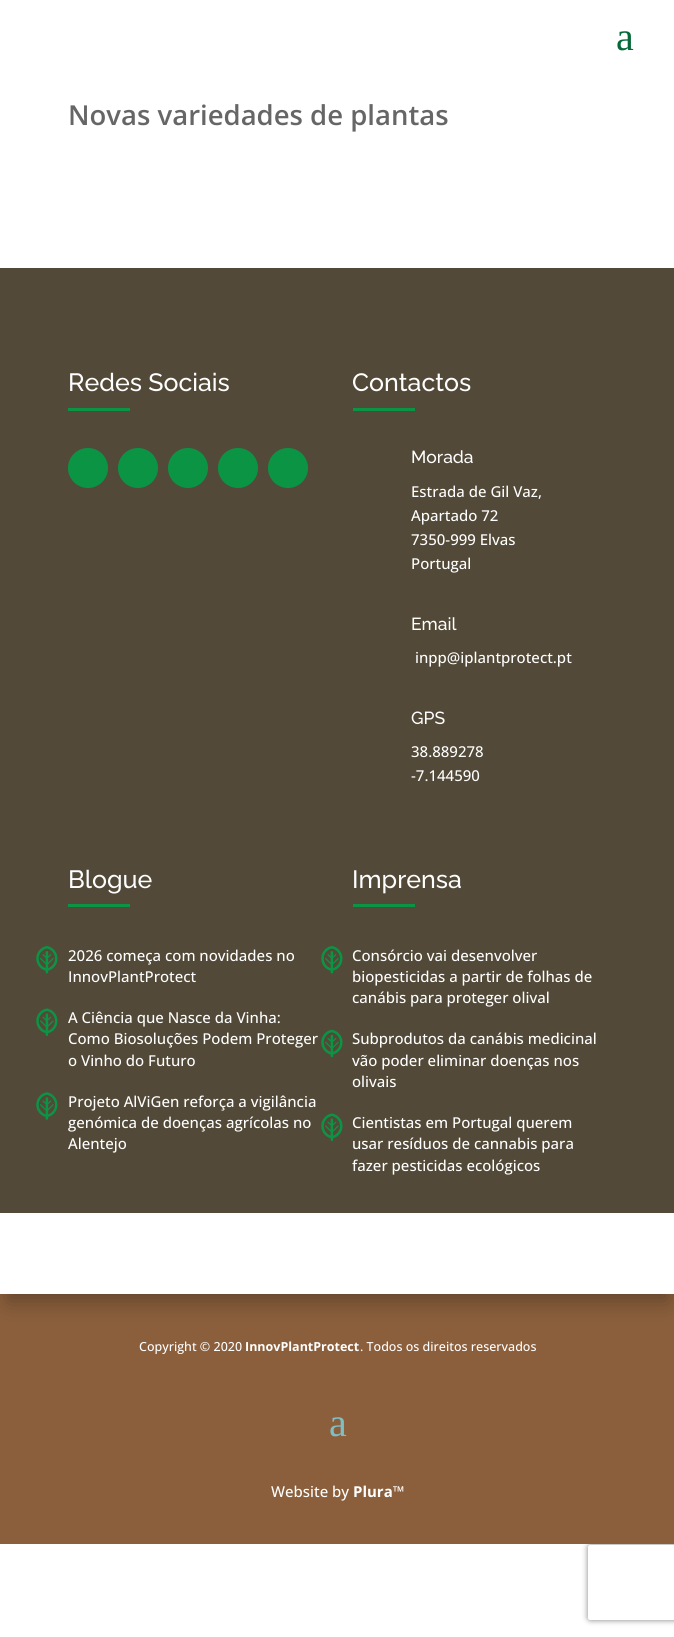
import math
import cairo

surface = cairo.ImageSurface(cairo.FORMAT_RGB24, 674, 1637)
ctx = cairo.Context(surface)
options = cairo.FontOptions()
options.set_hint_metrics(cairo.HINT_METRICS_OFF)
options.set_hint_style(cairo.HINT_STYLE_NONE)
ctx.set_font_options(options)
ctx.set_miter_limit(4)


def round_rect(x, y, w, h, r):
    ctx.new_sub_path()
    for i, (u, v) in enumerate([(x + w - r, y + h - r), (x + r, y + h - r), (x + r, y + r), (x + w - r, y + r)]):
        ctx.arc(u, v, r, i * math.pi / 2, (i + 1) * math.pi / 2)
    ctx.close_path()


def shadow(x, y, w, h, r, blur, alpha):
    ctx.push_group_with_content(cairo.CONTENT_ALPHA)
    ctx.set_operator(cairo.OPERATOR_SOURCE)
    for i in range(15, -16, -2):
        e = blur * i / 6
        if min(w, h) + 2 * e > 0:
            ctx.set_source_rgba(0, 0, 0, alpha * math.erfc((i - 1) / 8.5) / 2)
            round_rect(x - e, y - e, w + 2 * e, h + 2 * e, max(0, min(r + e + blur * .6, min(w, h) / 2 + e)))
            ctx.fill()
    ctx.mask(ctx.pop_group())


def picture(path, x, y, w, h):
    ctx.save()
    ctx.set_source_surface(cairo.ImageSurface.create_from_png(path), x, y)
    ctx.rectangle(x, y, w, h)
    ctx.fill()
    ctx.restore()


ctx.set_source_rgb(1, 1, 1)
ctx.paint()
ctx.select_font_face("Liberation Serif")
ctx.set_font_size(40)
ctx.set_source_rgb(0.02, 0.408, 0.224)
ctx.move_to(616, 50)
ctx.show_text("a")
ctx.select_font_face("Open Sans SemiBold")
ctx.set_font_size(27.5)
ctx.set_source_rgb(0.4, 0.4, 0.4)
ctx.move_to(68, 125)
ctx.show_text("Novas variedades de plantas")
ctx.set_source_rgb(0.322, 0.286, 0.22)
ctx.rectangle(0, 268, 674, 945)
ctx.fill()
ctx.select_font_face("Raleway Thin")
ctx.set_font_size(25)
ctx.set_source_rgb(1, 1, 1)
ctx.move_to(68, 391)
ctx.show_text("Redes Sociais")
ctx.set_source_rgb(0.043, 0.58, 0.267)
ctx.rectangle(68, 408, 62, 3)
ctx.fill()
ctx.arc(88, 468, 20, 0, 2 * math.pi)
ctx.fill()
ctx.arc(138, 468, 20, 0, 2 * math.pi)
ctx.fill()
ctx.arc(188, 468, 20, 0, 2 * math.pi)
ctx.fill()
ctx.arc(238, 468, 20, 0, 2 * math.pi)
ctx.fill()
ctx.arc(288, 468, 20, 0, 2 * math.pi)
ctx.fill()
ctx.set_source_rgb(1, 1, 1)
ctx.move_to(352, 391)
ctx.show_text("Contactos")
ctx.set_source_rgb(0.043, 0.58, 0.267)
ctx.rectangle(353, 408, 62, 3)
ctx.fill()
ctx.set_font_size(17.5)
ctx.set_source_rgb(1, 1, 1)
ctx.move_to(411, 463)
ctx.show_text("Morada")
ctx.select_font_face("Open Sans Medium")
ctx.set_font_size(15)
ctx.move_to(411, 497)
ctx.show_text("Estrada de Gil Vaz,")
ctx.move_to(411, 521)
ctx.show_text("Apartado 72")
ctx.move_to(411, 545)
ctx.show_text("7350-999 Elvas")
ctx.move_to(411, 569)
ctx.show_text("Portugal")
ctx.select_font_face("Raleway Thin")
ctx.set_font_size(17.5)
ctx.move_to(411, 630)
ctx.show_text("Email")
ctx.select_font_face("Open Sans Medium")
ctx.set_font_size(15)
ctx.move_to(415, 663)
ctx.show_text("inpp@iplantprotect.pt")
ctx.select_font_face("Raleway Thin")
ctx.set_font_size(17.5)
ctx.move_to(411, 724)
ctx.show_text("GPS")
ctx.select_font_face("Open Sans Medium")
ctx.set_font_size(15)
ctx.move_to(411, 757)
ctx.show_text("38.889278")
ctx.move_to(411, 781)
ctx.show_text("-7.144590")
ctx.select_font_face("Raleway Thin")
ctx.set_font_size(25)
ctx.move_to(68, 888)
ctx.show_text("Blogue")
ctx.set_source_rgb(0.043, 0.58, 0.267)
ctx.rectangle(68, 904, 62, 3)
ctx.fill()
picture("img1.png", 36, 946, 22, 28)
ctx.select_font_face("Open Sans Medium")
ctx.set_font_size(15)
ctx.set_source_rgb(1, 1, 1)
ctx.move_to(68, 961)
ctx.show_text("2026 começa com novidades no")
ctx.move_to(68, 982)
ctx.show_text("InnovPlantProtect")
picture("img2.png", 36, 1008, 22, 28)
ctx.move_to(68, 1023)
ctx.show_text("A Ciência que Nasce da Vinha:")
ctx.move_to(68, 1044)
ctx.show_text("Como Biosoluções Podem Proteger")
ctx.move_to(68, 1066)
ctx.show_text("o Vinho do Futuro")
picture("img3.png", 36, 1092, 22, 28)
ctx.move_to(68, 1107)
ctx.show_text("Projeto AlViGen reforça a vigilância")
ctx.move_to(68, 1128)
ctx.show_text("genómica de doenças agrícolas no")
ctx.move_to(68, 1149)
ctx.show_text("Alentejo")
ctx.select_font_face("Raleway Thin")
ctx.set_font_size(25)
ctx.move_to(352, 888)
ctx.show_text("Imprensa")
ctx.set_source_rgb(0.043, 0.58, 0.267)
ctx.rectangle(353, 904, 62, 3)
ctx.fill()
picture("img1.png", 321, 946, 22, 28)
ctx.select_font_face("Open Sans Medium")
ctx.set_font_size(15)
ctx.set_source_rgb(1, 1, 1)
ctx.move_to(352, 961)
ctx.show_text("Consórcio vai desenvolver")
ctx.move_to(352, 982)
ctx.show_text("biopesticidas a partir de folhas de")
ctx.move_to(352, 1003)
ctx.show_text("canábis para proteger olival")
picture("img4.png", 321, 1029, 22, 29)
ctx.move_to(352, 1044)
ctx.show_text("Subprodutos da canábis medicinal")
ctx.move_to(352, 1066)
ctx.show_text("vão poder eliminar doenças nos")
ctx.move_to(352, 1087)
ctx.show_text("olivais")
picture("img2.png", 321, 1113, 22, 28)
ctx.move_to(352, 1128)
ctx.show_text("Cientistas em Portugal querem")
ctx.move_to(352, 1149)
ctx.show_text("usar resíduos de cannabis para")
ctx.move_to(352, 1171)
ctx.show_text("fazer pesticidas ecológicos")
ctx.save()
ctx.set_fill_rule(cairo.FILL_RULE_EVEN_ODD)
ctx.new_path()
ctx.move_to(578, 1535)
ctx.line_to(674, 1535)
ctx.line_to(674, 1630)
ctx.line_to(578, 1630)
ctx.close_path()
ctx.move_to(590.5, 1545)
ctx.line_to(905.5, 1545)
ctx.curve_to(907, 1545, 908, 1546, 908, 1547.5)
ctx.line_to(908, 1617.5)
ctx.curve_to(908, 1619, 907, 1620, 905.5, 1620)
ctx.line_to(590.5, 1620)
ctx.curve_to(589, 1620, 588, 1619, 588, 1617.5)
ctx.line_to(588, 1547.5)
ctx.curve_to(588, 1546, 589, 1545, 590.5, 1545)
ctx.close_path()
ctx.clip()
ctx.set_source_rgb(0.502, 0.502, 0.502)
shadow(588, 1545, 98, 75, 2.5, 3, 1)
ctx.restore()
ctx.set_source_rgb(0.545, 0.373, 0.235)
ctx.rectangle(0, 1294, 674, 250)
ctx.fill()
ctx.set_source_rgb(0, 0, 0)
shadow(8, 1235, 660, 66, 0, 11, 0.3)
ctx.set_source_rgb(1, 1, 1)
ctx.rectangle(0, 1215, 674, 79)
ctx.fill()
ctx.set_font_size(12.5)
ctx.move_to(139, 1351)
ctx.show_text("Copyright © 2020")
ctx.select_font_face("Open Sans", cairo.FONT_SLANT_NORMAL, cairo.FONT_WEIGHT_BOLD)
ctx.move_to(245, 1351)
ctx.show_text("InnovPlantProtect")
ctx.select_font_face("Open Sans Medium")
ctx.move_to(360, 1351)
ctx.show_text(". Todos os direitos reservados")
ctx.select_font_face("Liberation Serif")
ctx.set_font_size(40)
ctx.set_source_rgb(0.494, 0.745, 0.773)
ctx.move_to(329, 1436)
ctx.show_text("a")
ctx.select_font_face("Open Sans Medium")
ctx.set_font_size(15)
ctx.set_source_rgb(1, 1, 1)
ctx.move_to(271, 1497)
ctx.show_text("Website by")
ctx.select_font_face("Open Sans", cairo.FONT_SLANT_NORMAL, cairo.FONT_WEIGHT_BOLD)
ctx.move_to(353, 1497)
ctx.show_text("Plura™")
surface.write_to_png("page.png")
